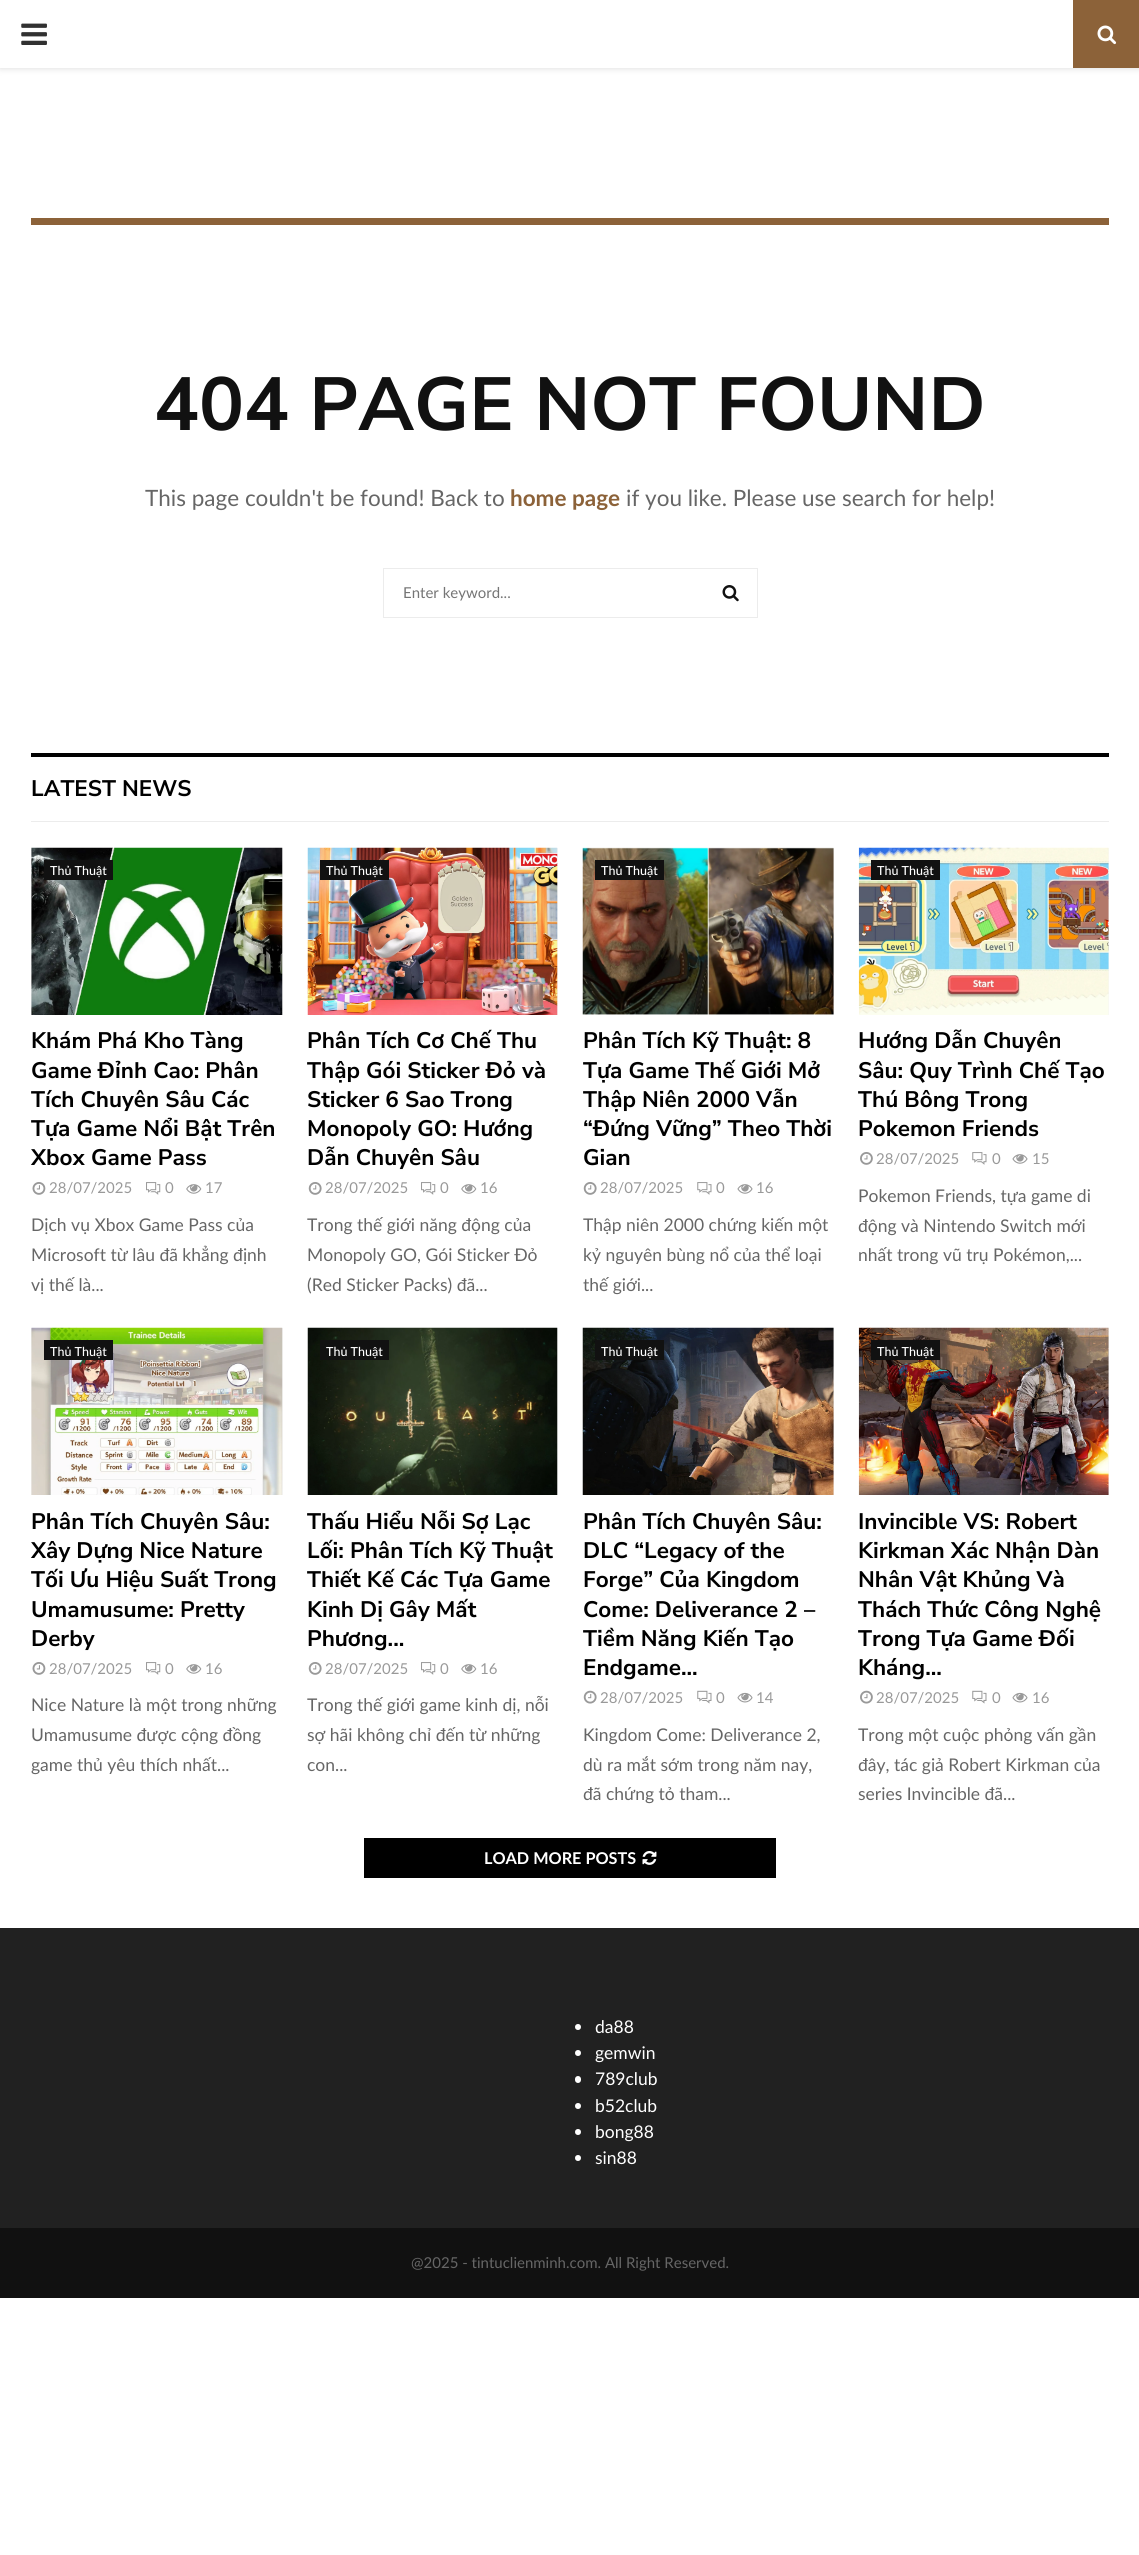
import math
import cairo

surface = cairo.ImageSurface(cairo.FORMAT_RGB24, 1139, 2555)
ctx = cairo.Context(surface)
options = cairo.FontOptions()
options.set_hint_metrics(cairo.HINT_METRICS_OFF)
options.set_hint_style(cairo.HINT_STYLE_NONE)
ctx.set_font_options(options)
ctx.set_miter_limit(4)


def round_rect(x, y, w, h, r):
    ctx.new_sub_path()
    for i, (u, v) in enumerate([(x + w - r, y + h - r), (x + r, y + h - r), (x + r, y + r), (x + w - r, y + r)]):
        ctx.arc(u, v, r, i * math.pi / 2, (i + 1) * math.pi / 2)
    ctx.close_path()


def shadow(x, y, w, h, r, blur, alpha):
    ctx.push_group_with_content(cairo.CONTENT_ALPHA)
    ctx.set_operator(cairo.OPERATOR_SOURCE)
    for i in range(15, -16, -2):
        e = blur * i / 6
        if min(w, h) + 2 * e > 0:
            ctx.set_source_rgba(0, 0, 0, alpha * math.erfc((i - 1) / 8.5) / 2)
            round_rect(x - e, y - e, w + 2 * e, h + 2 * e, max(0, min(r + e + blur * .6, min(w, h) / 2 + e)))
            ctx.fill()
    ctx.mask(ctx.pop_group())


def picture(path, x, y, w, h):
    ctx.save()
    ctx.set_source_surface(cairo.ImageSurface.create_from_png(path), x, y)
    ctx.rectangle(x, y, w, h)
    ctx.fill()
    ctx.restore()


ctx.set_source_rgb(1, 1, 1)
ctx.paint()
ctx.set_source_rgb(0.745, 0.745, 0.745)
shadow(0, 1, 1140, 68, 0, 3, 0.46)
ctx.set_source_rgb(1, 1, 1)
ctx.rectangle(0, 0, 1073, 68)
ctx.fill()
picture("img1.png", 21, 23, 26, 22)
ctx.set_source_rgb(0.549, 0.384, 0.224)
ctx.rectangle(1073, 0, 66, 68)
ctx.fill()
picture("img2.png", 1097, 25, 20, 20)
ctx.rectangle(31, 218, 1078, 7)
ctx.fill()
ctx.select_font_face("Nunito Sans", cairo.FONT_SLANT_NORMAL, cairo.FONT_WEIGHT_BOLD)
ctx.set_font_size(75)
ctx.set_source_rgb(0.067, 0.067, 0.067)
ctx.move_to(154, 430)
ctx.show_text("404 PAGE NOT FOUND")
ctx.select_font_face("Lato")
ctx.set_font_size(22.5)
ctx.set_source_rgb(0.4, 0.4, 0.4)
ctx.move_to(145, 506)
ctx.show_text("This page couldn't be found! Back to")
ctx.select_font_face("Lato", cairo.FONT_SLANT_NORMAL, cairo.FONT_WEIGHT_BOLD)
ctx.set_source_rgb(0.549, 0.384, 0.224)
ctx.move_to(510, 506)
ctx.show_text("home page")
ctx.select_font_face("Lato")
ctx.set_source_rgb(0.4, 0.4, 0.4)
ctx.move_to(626, 506)
ctx.show_text("if you like. Please use search for help!")
ctx.rectangle(383.5, 568.5, 374, 49)
ctx.set_source_rgb(0.925, 0.925, 0.925)
ctx.set_line_width(1)
ctx.stroke()
ctx.set_font_size(15)
ctx.set_source_rgb(0.459, 0.459, 0.459)
ctx.move_to(403, 598)
ctx.show_text("Enter keyword...")
picture("img3.png", 722, 585, 17, 17)
ctx.set_source_rgb(0.925, 0.925, 0.925)
ctx.rectangle(31, 821, 1078, 1)
ctx.fill()
ctx.set_source_rgb(0, 0, 0)
ctx.rectangle(31, 753, 1078, 4)
ctx.fill()
ctx.select_font_face("Nunito Sans", cairo.FONT_SLANT_NORMAL, cairo.FONT_WEIGHT_BOLD)
ctx.set_font_size(22.5)
ctx.move_to(31, 796)
ctx.show_text("LATEST NEWS")
ctx.set_source_rgb(0.961, 0.961, 0.961)
ctx.rectangle(31, 848, 252, 167)
ctx.fill()
picture("img4.png", 31, 847, 252, 168)
ctx.set_source_rgb(0.067, 0.067, 0.067)
ctx.rectangle(44, 860, 69, 20)
ctx.fill()
ctx.select_font_face("Lato Medium")
ctx.set_font_size(12.5)
ctx.set_source_rgb(1, 1, 1)
ctx.move_to(50, 875)
ctx.show_text("Thủ Thuật")
ctx.select_font_face("Nunito Sans", cairo.FONT_SLANT_NORMAL, cairo.FONT_WEIGHT_BOLD)
ctx.set_font_size(22.5)
ctx.set_source_rgb(0, 0, 0)
ctx.move_to(31, 1048)
ctx.show_text("Khám Phá Kho Tàng")
ctx.move_to(31, 1078)
ctx.show_text("Game Đỉnh Cao: Phân")
ctx.move_to(31, 1107)
ctx.show_text("Tích Chuyên Sâu Các")
ctx.move_to(31, 1136)
ctx.show_text("Tựa Game Nổi Bật Trên")
ctx.move_to(31, 1165)
ctx.show_text("Xbox Game Pass")
picture("img5.png", 32, 1182, 14, 13)
ctx.select_font_face("Lato")
ctx.set_font_size(15)
ctx.set_source_rgb(0.6, 0.6, 0.6)
ctx.move_to(49, 1193)
ctx.show_text("28/07/2025")
picture("img6.png", 146, 1182, 15, 13)
ctx.move_to(165, 1193)
ctx.show_text("0")
picture("img7.png", 186, 1184, 16, 10)
ctx.move_to(205, 1193)
ctx.show_text("17")
ctx.set_font_size(17.5)
ctx.set_source_rgb(0.4, 0.4, 0.4)
ctx.move_to(31, 1231)
ctx.show_text("Dịch vụ Xbox Game Pass của")
ctx.move_to(31, 1261)
ctx.show_text("Microsoft từ lâu đã khẳng định")
ctx.move_to(31, 1291)
ctx.show_text("vị thế là...")
ctx.set_source_rgb(0.961, 0.961, 0.961)
ctx.rectangle(557, 848, 1, 167)
ctx.fill()
picture("img8.png", 307, 847, 251, 168)
ctx.set_source_rgb(0.067, 0.067, 0.067)
ctx.rectangle(320, 860, 69, 20)
ctx.fill()
ctx.select_font_face("Lato Medium")
ctx.set_font_size(12.5)
ctx.set_source_rgb(1, 1, 1)
ctx.move_to(326, 875)
ctx.show_text("Thủ Thuật")
ctx.select_font_face("Nunito Sans", cairo.FONT_SLANT_NORMAL, cairo.FONT_WEIGHT_BOLD)
ctx.set_font_size(22.5)
ctx.set_source_rgb(0, 0, 0)
ctx.move_to(307, 1048)
ctx.show_text("Phân Tích Cơ Chế Thu")
ctx.move_to(307, 1078)
ctx.show_text("Thập Gói Sticker Đỏ và")
ctx.move_to(307, 1107)
ctx.show_text("Sticker 6 Sao Trong")
ctx.move_to(307, 1136)
ctx.show_text("Monopoly GO: Hướng")
ctx.move_to(307, 1165)
ctx.show_text("Dẫn Chuyên Sâu")
picture("img9.png", 308, 1182, 14, 13)
ctx.select_font_face("Lato")
ctx.set_font_size(15)
ctx.set_source_rgb(0.6, 0.6, 0.6)
ctx.move_to(325, 1193)
ctx.show_text("28/07/2025")
picture("img6.png", 421, 1182, 15, 13)
ctx.move_to(440, 1193)
ctx.show_text("0")
picture("img7.png", 461, 1184, 16, 10)
ctx.move_to(480, 1193)
ctx.show_text("16")
ctx.set_font_size(17.5)
ctx.set_source_rgb(0.4, 0.4, 0.4)
ctx.move_to(307, 1231)
ctx.show_text("Trong thế giới năng động của")
ctx.move_to(307, 1261)
ctx.show_text("Monopoly GO, Gói Sticker Đỏ")
ctx.move_to(307, 1291)
ctx.show_text("(Red Sticker Packs) đã...")
ctx.set_source_rgb(0.961, 0.961, 0.961)
ctx.rectangle(833, 848, 1, 167)
ctx.fill()
picture("img10.png", 582, 847, 252, 168)
ctx.set_source_rgb(0.067, 0.067, 0.067)
ctx.rectangle(595, 860, 69, 20)
ctx.fill()
ctx.select_font_face("Lato Medium")
ctx.set_font_size(12.5)
ctx.set_source_rgb(1, 1, 1)
ctx.move_to(601, 875)
ctx.show_text("Thủ Thuật")
ctx.select_font_face("Nunito Sans", cairo.FONT_SLANT_NORMAL, cairo.FONT_WEIGHT_BOLD)
ctx.set_font_size(22.5)
ctx.set_source_rgb(0, 0, 0)
ctx.move_to(583, 1048)
ctx.show_text("Phân Tích Kỹ Thuật: 8")
ctx.move_to(583, 1078)
ctx.show_text("Tựa Game Thế Giới Mở")
ctx.move_to(583, 1107)
ctx.show_text("Thập Niên 2000 Vẫn")
ctx.move_to(583, 1136)
ctx.show_text("“Đứng Vững” Theo Thời")
ctx.move_to(583, 1165)
ctx.show_text("Gian")
picture("img9.png", 583, 1182, 14, 13)
ctx.select_font_face("Lato")
ctx.set_font_size(15)
ctx.set_source_rgb(0.6, 0.6, 0.6)
ctx.move_to(600, 1193)
ctx.show_text("28/07/2025")
picture("img11.png", 697, 1182, 15, 13)
ctx.move_to(716, 1193)
ctx.show_text("0")
picture("img12.png", 737, 1184, 16, 10)
ctx.move_to(756, 1193)
ctx.show_text("16")
ctx.set_font_size(17.5)
ctx.set_source_rgb(0.4, 0.4, 0.4)
ctx.move_to(583, 1231)
ctx.show_text("Thập niên 2000 chứng kiến một")
ctx.move_to(583, 1261)
ctx.show_text("kỷ nguyên bùng nổ của thể loại")
ctx.move_to(583, 1291)
ctx.show_text("thế giới...")
ctx.set_source_rgb(0.961, 0.961, 0.961)
ctx.rectangle(1108, 848, 1, 167)
ctx.fill()
picture("img13.png", 858, 847, 251, 168)
ctx.set_source_rgb(0.067, 0.067, 0.067)
ctx.rectangle(871, 860, 69, 20)
ctx.fill()
ctx.select_font_face("Lato Medium")
ctx.set_font_size(12.5)
ctx.set_source_rgb(1, 1, 1)
ctx.move_to(877, 875)
ctx.show_text("Thủ Thuật")
ctx.select_font_face("Nunito Sans", cairo.FONT_SLANT_NORMAL, cairo.FONT_WEIGHT_BOLD)
ctx.set_font_size(22.5)
ctx.set_source_rgb(0, 0, 0)
ctx.move_to(858, 1048)
ctx.show_text("Hướng Dẫn Chuyên")
ctx.move_to(858, 1078)
ctx.show_text("Sâu: Quy Trình Chế Tạo")
ctx.move_to(858, 1107)
ctx.show_text("Thú Bông Trong")
ctx.move_to(858, 1136)
ctx.show_text("Pokemon Friends")
picture("img14.png", 860, 1152, 13, 13)
ctx.select_font_face("Lato")
ctx.set_font_size(15)
ctx.set_source_rgb(0.6, 0.6, 0.6)
ctx.move_to(876, 1164)
ctx.show_text("28/07/2025")
picture("img11.png", 972, 1152, 15, 13)
ctx.move_to(992, 1164)
ctx.show_text("0")
picture("img12.png", 1012, 1154, 16, 10)
ctx.move_to(1032, 1164)
ctx.show_text("15")
ctx.set_font_size(17.5)
ctx.set_source_rgb(0.4, 0.4, 0.4)
ctx.move_to(858, 1202)
ctx.show_text("Pokemon Friends, tựa game di")
ctx.move_to(858, 1232)
ctx.show_text("động và Nintendo Switch mới")
ctx.move_to(858, 1261)
ctx.show_text("nhất trong vũ trụ Pokémon,...")
ctx.set_source_rgb(0.961, 0.961, 0.961)
ctx.rectangle(31, 1328, 252, 167)
ctx.fill()
picture("img15.png", 31, 1327, 252, 168)
ctx.set_source_rgb(0.067, 0.067, 0.067)
ctx.rectangle(44, 1340, 69, 20)
ctx.fill()
ctx.select_font_face("Lato Medium")
ctx.set_font_size(12.5)
ctx.set_source_rgb(1, 1, 1)
ctx.move_to(50, 1356)
ctx.show_text("Thủ Thuật")
ctx.select_font_face("Nunito Sans", cairo.FONT_SLANT_NORMAL, cairo.FONT_WEIGHT_BOLD)
ctx.set_font_size(22.5)
ctx.set_source_rgb(0, 0, 0)
ctx.move_to(31, 1529)
ctx.show_text("Phân Tích Chuyên Sâu:")
ctx.move_to(31, 1558)
ctx.show_text("Xây Dựng Nice Nature")
ctx.move_to(31, 1587)
ctx.show_text("Tối Ưu Hiệu Suất Trong")
ctx.move_to(31, 1617)
ctx.show_text("Umamusume: Pretty")
ctx.move_to(31, 1646)
ctx.show_text("Derby")
picture("img5.png", 32, 1662, 14, 13)
ctx.select_font_face("Lato")
ctx.set_font_size(15)
ctx.set_source_rgb(0.6, 0.6, 0.6)
ctx.move_to(49, 1674)
ctx.show_text("28/07/2025")
picture("img6.png", 146, 1662, 15, 13)
ctx.move_to(165, 1674)
ctx.show_text("0")
picture("img7.png", 186, 1664, 16, 10)
ctx.move_to(205, 1674)
ctx.show_text("16")
ctx.set_font_size(17.5)
ctx.set_source_rgb(0.4, 0.4, 0.4)
ctx.move_to(31, 1711)
ctx.show_text("Nice Nature là một trong những")
ctx.move_to(31, 1741)
ctx.show_text("Umamusume được cộng đồng")
ctx.move_to(31, 1771)
ctx.show_text("game thủ yêu thích nhất...")
ctx.set_source_rgb(0.961, 0.961, 0.961)
ctx.rectangle(557, 1328, 1, 167)
ctx.fill()
picture("img16.png", 307, 1327, 251, 168)
ctx.set_source_rgb(0.067, 0.067, 0.067)
ctx.rectangle(320, 1340, 69, 20)
ctx.fill()
ctx.select_font_face("Lato Medium")
ctx.set_font_size(12.5)
ctx.set_source_rgb(1, 1, 1)
ctx.move_to(326, 1356)
ctx.show_text("Thủ Thuật")
ctx.select_font_face("Nunito Sans", cairo.FONT_SLANT_NORMAL, cairo.FONT_WEIGHT_BOLD)
ctx.set_font_size(22.5)
ctx.set_source_rgb(0, 0, 0)
ctx.move_to(307, 1529)
ctx.show_text("Thấu Hiểu Nỗi Sợ Lạc")
ctx.move_to(307, 1558)
ctx.show_text("Lối: Phân Tích Kỹ Thuật")
ctx.move_to(307, 1587)
ctx.show_text("Thiết Kế Các Tựa Game")
ctx.move_to(307, 1617)
ctx.show_text("Kinh Dị Gây Mất")
ctx.move_to(307, 1646)
ctx.show_text("Phương...")
picture("img9.png", 308, 1662, 14, 13)
ctx.select_font_face("Lato")
ctx.set_font_size(15)
ctx.set_source_rgb(0.6, 0.6, 0.6)
ctx.move_to(325, 1674)
ctx.show_text("28/07/2025")
picture("img6.png", 421, 1662, 15, 13)
ctx.move_to(440, 1674)
ctx.show_text("0")
picture("img7.png", 461, 1664, 16, 10)
ctx.move_to(480, 1674)
ctx.show_text("16")
ctx.set_font_size(17.5)
ctx.set_source_rgb(0.4, 0.4, 0.4)
ctx.move_to(307, 1711)
ctx.show_text("Trong thế giới game kinh dị, nỗi")
ctx.move_to(307, 1741)
ctx.show_text("sợ hãi không chỉ đến từ những")
ctx.move_to(307, 1771)
ctx.show_text("con...")
ctx.set_source_rgb(0.961, 0.961, 0.961)
ctx.rectangle(833, 1328, 1, 167)
ctx.fill()
picture("img17.png", 582, 1327, 252, 168)
ctx.set_source_rgb(0.067, 0.067, 0.067)
ctx.rectangle(595, 1340, 69, 20)
ctx.fill()
ctx.select_font_face("Lato Medium")
ctx.set_font_size(12.5)
ctx.set_source_rgb(1, 1, 1)
ctx.move_to(601, 1356)
ctx.show_text("Thủ Thuật")
ctx.select_font_face("Nunito Sans", cairo.FONT_SLANT_NORMAL, cairo.FONT_WEIGHT_BOLD)
ctx.set_font_size(22.5)
ctx.set_source_rgb(0, 0, 0)
ctx.move_to(583, 1529)
ctx.show_text("Phân Tích Chuyên Sâu:")
ctx.move_to(583, 1558)
ctx.show_text("DLC “Legacy of the")
ctx.move_to(583, 1587)
ctx.show_text("Forge” Của Kingdom")
ctx.move_to(583, 1617)
ctx.show_text("Come: Deliverance 2 –")
ctx.move_to(583, 1646)
ctx.show_text("Tiềm Năng Kiến Tạo")
ctx.move_to(583, 1675)
ctx.show_text("Endgame...")
picture("img18.png", 583, 1690, 14, 14)
ctx.select_font_face("Lato")
ctx.set_font_size(15)
ctx.set_source_rgb(0.6, 0.6, 0.6)
ctx.move_to(600, 1703)
ctx.show_text("28/07/2025")
picture("img19.png", 697, 1690, 15, 14)
ctx.move_to(716, 1703)
ctx.show_text("0")
picture("img20.png", 737, 1692, 16, 11)
ctx.move_to(756, 1703)
ctx.show_text("14")
ctx.set_font_size(17.5)
ctx.set_source_rgb(0.4, 0.4, 0.4)
ctx.move_to(583, 1741)
ctx.show_text("Kingdom Come: Deliverance 2,")
ctx.move_to(583, 1771)
ctx.show_text("dù ra mắt sớm trong năm nay,")
ctx.move_to(583, 1800)
ctx.show_text("đã chứng tỏ tham...")
ctx.set_source_rgb(0.961, 0.961, 0.961)
ctx.rectangle(1108, 1328, 1, 167)
ctx.fill()
picture("img21.png", 858, 1327, 251, 168)
ctx.set_source_rgb(0.067, 0.067, 0.067)
ctx.rectangle(871, 1340, 69, 20)
ctx.fill()
ctx.select_font_face("Lato Medium")
ctx.set_font_size(12.5)
ctx.set_source_rgb(1, 1, 1)
ctx.move_to(877, 1356)
ctx.show_text("Thủ Thuật")
ctx.select_font_face("Nunito Sans", cairo.FONT_SLANT_NORMAL, cairo.FONT_WEIGHT_BOLD)
ctx.set_font_size(22.5)
ctx.set_source_rgb(0, 0, 0)
ctx.move_to(858, 1529)
ctx.show_text("Invincible VS: Robert")
ctx.move_to(858, 1558)
ctx.show_text("Kirkman Xác Nhận Dàn")
ctx.move_to(858, 1587)
ctx.show_text("Nhân Vật Khủng Và")
ctx.move_to(858, 1617)
ctx.show_text("Thách Thức Công Nghệ")
ctx.move_to(858, 1646)
ctx.show_text("Trong Tựa Game Đối")
ctx.move_to(858, 1675)
ctx.show_text("Kháng...")
picture("img22.png", 860, 1690, 13, 14)
ctx.select_font_face("Lato")
ctx.set_font_size(15)
ctx.set_source_rgb(0.6, 0.6, 0.6)
ctx.move_to(876, 1703)
ctx.show_text("28/07/2025")
picture("img19.png", 972, 1690, 15, 14)
ctx.move_to(992, 1703)
ctx.show_text("0")
picture("img20.png", 1012, 1692, 16, 11)
ctx.move_to(1032, 1703)
ctx.show_text("16")
ctx.set_font_size(17.5)
ctx.set_source_rgb(0.4, 0.4, 0.4)
ctx.move_to(858, 1741)
ctx.show_text("Trong một cuộc phỏng vấn gần")
ctx.move_to(858, 1771)
ctx.show_text("đây, tác giả Robert Kirkman của")
ctx.move_to(858, 1800)
ctx.show_text("series Invincible đã...")
ctx.set_source_rgb(0, 0, 0)
ctx.rectangle(364, 1838, 412, 40)
ctx.fill()
ctx.select_font_face("Lato", cairo.FONT_SLANT_NORMAL, cairo.FONT_WEIGHT_BOLD)
ctx.set_font_size(16.25)
ctx.set_source_rgb(1, 1, 1)
ctx.move_to(484, 1864)
ctx.show_text("LOAD MORE POSTS")
picture("img23.png", 642, 1851, 15, 14)
ctx.set_source_rgb(0.129, 0.129, 0.129)
ctx.rectangle(0, 1928, 1139, 300)
ctx.fill()
ctx.set_source_rgb(1, 1, 1)
ctx.arc(578, 2027, 3, 0, 2 * math.pi)
ctx.fill()
ctx.select_font_face("Lato")
ctx.set_font_size(17.5)
ctx.move_to(595, 2033)
ctx.show_text("da88")
ctx.new_path()
ctx.arc(578, 2053, 3, 0, 2 * math.pi)
ctx.fill()
ctx.move_to(595, 2059)
ctx.show_text("gemwin")
round_rect(575, 2076, 6, 7, 3)
ctx.fill()
ctx.move_to(595, 2085)
ctx.show_text("789club")
ctx.new_path()
ctx.arc(578, 2106, 3, 0, 2 * math.pi)
ctx.fill()
ctx.move_to(595, 2112)
ctx.show_text("b52club")
ctx.new_path()
ctx.arc(578, 2132, 3, 0, 2 * math.pi)
ctx.fill()
ctx.move_to(595, 2138)
ctx.show_text("bong88")
ctx.new_path()
ctx.arc(578, 2158, 3, 0, 2 * math.pi)
ctx.fill()
ctx.move_to(595, 2164)
ctx.show_text("sin88")
ctx.set_source_rgb(0.067, 0.067, 0.067)
ctx.rectangle(0, 2228, 1139, 70)
ctx.fill()
ctx.set_font_size(15)
ctx.set_source_rgb(0.4, 0.4, 0.4)
ctx.move_to(411, 2268)
ctx.show_text("@2025 - tintuclienminh.com. All Right Reserved.")
surface.write_to_png("page.png")
